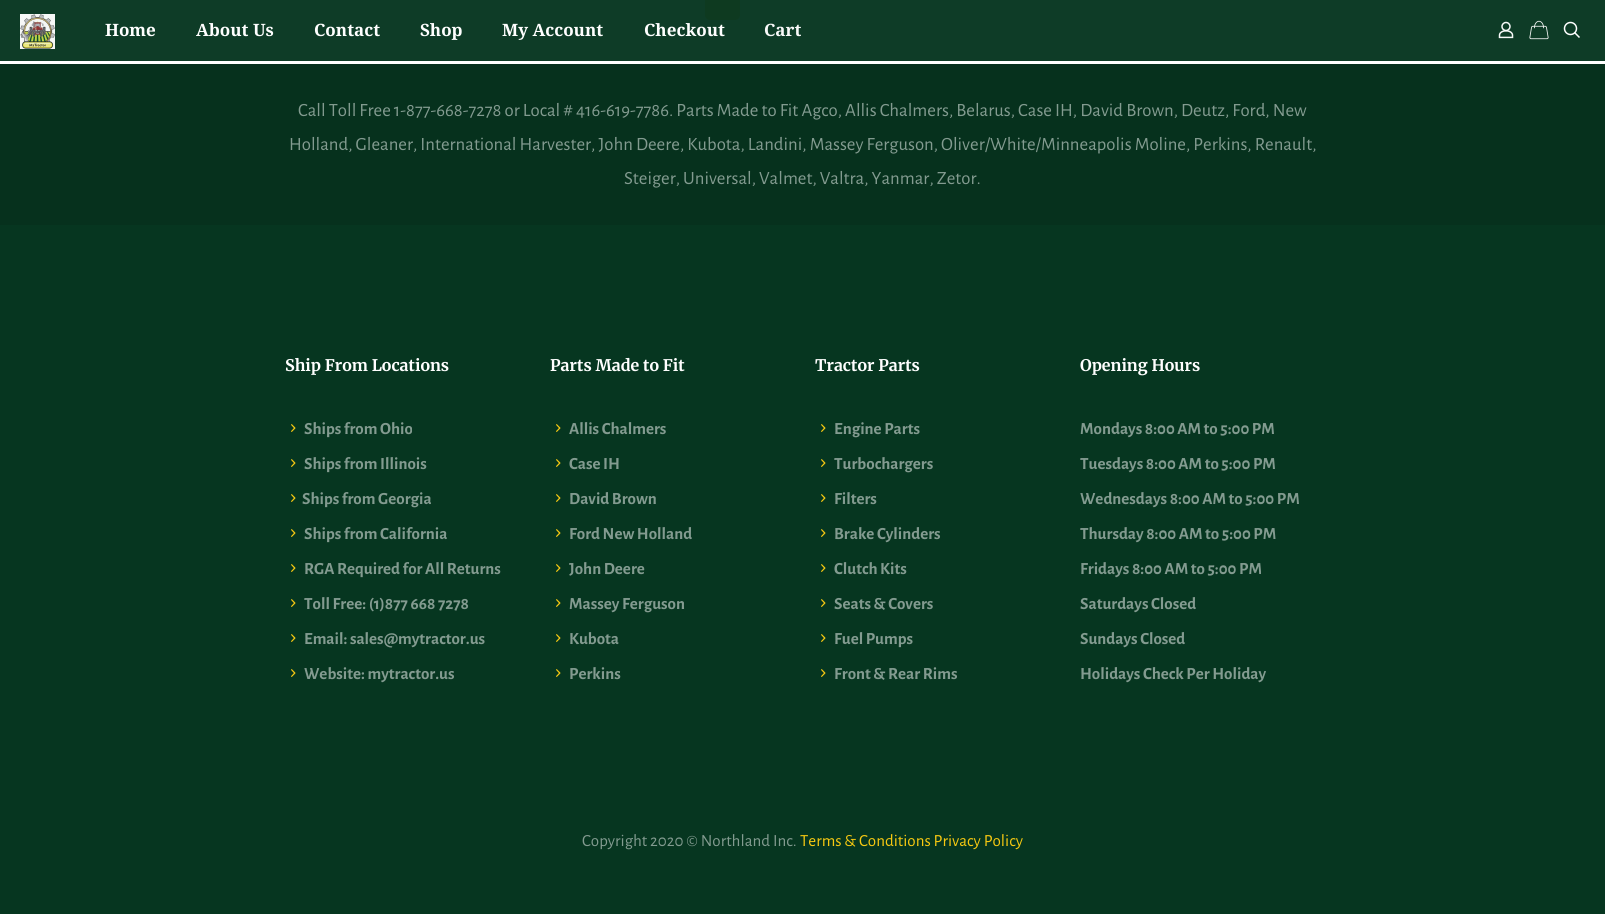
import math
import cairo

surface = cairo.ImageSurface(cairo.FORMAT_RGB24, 1605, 914)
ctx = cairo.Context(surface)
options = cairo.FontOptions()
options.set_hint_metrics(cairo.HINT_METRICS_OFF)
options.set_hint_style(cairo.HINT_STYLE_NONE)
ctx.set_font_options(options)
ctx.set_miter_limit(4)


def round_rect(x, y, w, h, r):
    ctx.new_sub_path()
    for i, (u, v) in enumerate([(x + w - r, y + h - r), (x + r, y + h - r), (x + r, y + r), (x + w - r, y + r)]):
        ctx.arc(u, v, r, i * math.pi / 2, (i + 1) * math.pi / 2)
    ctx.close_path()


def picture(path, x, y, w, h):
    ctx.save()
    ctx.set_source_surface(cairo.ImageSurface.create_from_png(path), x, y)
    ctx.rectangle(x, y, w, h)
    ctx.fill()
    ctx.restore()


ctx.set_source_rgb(1, 1, 1)
ctx.paint()
ctx.set_source_rgb(0.055, 0.235, 0.153)
ctx.rectangle(0, 0, 1605, 61)
ctx.fill()
picture("img1.png", 701, 0, 203, 24)
ctx.set_source_rgb(0.055, 0.227, 0.125)
round_rect(705, -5, 35, 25, 5)
ctx.fill()
picture("img2.png", 20, 14, 35, 35)
ctx.select_font_face("Noto Serif", cairo.FONT_SLANT_NORMAL, cairo.FONT_WEIGHT_BOLD)
ctx.set_font_size(17)
ctx.set_source_rgb(1, 1, 1)
ctx.move_to(105, 36)
ctx.show_text("Home")
ctx.move_to(196, 36)
ctx.show_text("About Us")
ctx.move_to(314, 36)
ctx.show_text("Contact")
ctx.move_to(420, 36)
ctx.show_text("Shop")
ctx.move_to(502, 36)
ctx.show_text("My Account")
ctx.move_to(644, 36)
ctx.show_text("Checkout")
ctx.set_source_rgb(0.973, 0.976, 0.976)
ctx.move_to(764, 36)
ctx.show_text("Cart")
picture("img3.png", 1498, 21, 16, 18)
picture("img4.png", 1529, 20, 20, 20)
ctx.arc(1570.5, 28.5, 6, 0, 2 * math.pi)
ctx.set_source_rgb(1, 1, 1)
ctx.set_line_width(1.5)
ctx.stroke()
ctx.new_path()
ctx.move_to(1574.5, 32.5)
ctx.line_to(1579.5, 37.5)
ctx.stroke()
ctx.set_source_rgb(0.027, 0.212, 0.125)
ctx.rectangle(0, 225, 1605, 689)
ctx.fill()
ctx.set_source_rgb(0.024, 0.192, 0.114)
ctx.rectangle(0, 64, 1605, 161)
ctx.fill()
ctx.select_font_face("Alegreya Sans")
ctx.set_font_size(18.7)
ctx.set_source_rgb(0.514, 0.608, 0.565)
ctx.move_to(298, 116)
ctx.show_text("Call Toll Free 1-877-668-7278 or Local # 416-619-7786. Parts Made to Fit Agco, Allis Chalmers, Belarus, Case IH, David Brown, Deutz, Ford, New")
ctx.move_to(289, 150)
ctx.show_text("Holland, Gleaner, International Harvester, John Deere, Kubota, Landini, Massey Ferguson, Oliver/White/Minneapolis Moline, Perkins, Renault,")
ctx.move_to(624, 184)
ctx.show_text("Steiger, Universal, Valmet, Valtra, Yanmar, Zetor.")
ctx.select_font_face("Merriweather", cairo.FONT_SLANT_NORMAL, cairo.FONT_WEIGHT_BOLD)
ctx.set_font_size(16)
ctx.set_source_rgb(1, 1, 1)
ctx.move_to(285, 371)
ctx.show_text("Ship From Locations")
picture("img5.png", 291, 424, 5, 8)
ctx.select_font_face("Alegreya Sans", cairo.FONT_SLANT_NORMAL, cairo.FONT_WEIGHT_BOLD)
ctx.set_font_size(17)
ctx.set_source_rgb(0.514, 0.608, 0.565)
ctx.move_to(304, 434)
ctx.show_text("Ships from Ohio")
picture("img5.png", 291, 459, 5, 8)
ctx.move_to(304, 469)
ctx.show_text("Ships from Illinois")
picture("img5.png", 291, 494, 5, 8)
ctx.move_to(302, 504)
ctx.show_text("Ships from Georgia")
picture("img5.png", 291, 529, 5, 8)
ctx.move_to(304, 539)
ctx.show_text("Ships from California")
picture("img5.png", 291, 564, 5, 8)
ctx.move_to(304, 574)
ctx.show_text("RGA Required for All Returns")
picture("img5.png", 291, 599, 5, 8)
ctx.move_to(304, 609)
ctx.show_text("Toll Free: (1)877 668 7278")
picture("img5.png", 291, 634, 5, 8)
ctx.move_to(304, 644)
ctx.show_text("Email: sales@mytractor.us")
picture("img5.png", 291, 669, 5, 8)
ctx.move_to(304, 679)
ctx.show_text("Website: mytractor.us")
ctx.select_font_face("Merriweather", cairo.FONT_SLANT_NORMAL, cairo.FONT_WEIGHT_BOLD)
ctx.set_font_size(16)
ctx.set_source_rgb(1, 1, 1)
ctx.move_to(550, 371)
ctx.show_text("Parts Made to Fit")
picture("img5.png", 556, 424, 5, 8)
ctx.select_font_face("Alegreya Sans", cairo.FONT_SLANT_NORMAL, cairo.FONT_WEIGHT_BOLD)
ctx.set_font_size(17)
ctx.set_source_rgb(0.514, 0.608, 0.565)
ctx.move_to(569, 434)
ctx.show_text("Allis Chalmers")
picture("img5.png", 556, 459, 5, 8)
ctx.move_to(569, 469)
ctx.show_text("Case IH")
picture("img5.png", 556, 494, 5, 8)
ctx.move_to(569, 504)
ctx.show_text("David Brown")
picture("img5.png", 556, 529, 5, 8)
ctx.move_to(569, 539)
ctx.show_text("Ford New Holland")
picture("img5.png", 556, 564, 5, 8)
ctx.move_to(569, 574)
ctx.show_text("John Deere")
picture("img5.png", 556, 599, 5, 8)
ctx.move_to(569, 609)
ctx.show_text("Massey Ferguson")
picture("img5.png", 556, 634, 5, 8)
ctx.move_to(569, 644)
ctx.show_text("Kubota")
picture("img5.png", 556, 669, 5, 8)
ctx.move_to(569, 679)
ctx.show_text("Perkins")
ctx.select_font_face("Merriweather", cairo.FONT_SLANT_NORMAL, cairo.FONT_WEIGHT_BOLD)
ctx.set_font_size(16)
ctx.set_source_rgb(1, 1, 1)
ctx.move_to(815, 371)
ctx.show_text("Tractor Parts")
picture("img5.png", 821, 424, 5, 8)
ctx.select_font_face("Alegreya Sans", cairo.FONT_SLANT_NORMAL, cairo.FONT_WEIGHT_BOLD)
ctx.set_font_size(17)
ctx.set_source_rgb(0.514, 0.608, 0.565)
ctx.move_to(834, 434)
ctx.show_text("Engine Parts")
picture("img5.png", 821, 459, 5, 8)
ctx.move_to(834, 469)
ctx.show_text("Turbochargers")
picture("img5.png", 821, 494, 5, 8)
ctx.move_to(834, 504)
ctx.show_text("Filters")
picture("img5.png", 821, 529, 5, 8)
ctx.move_to(834, 539)
ctx.show_text("Brake Cylinders")
picture("img5.png", 821, 564, 5, 8)
ctx.move_to(834, 574)
ctx.show_text("Clutch Kits")
picture("img5.png", 821, 599, 5, 8)
ctx.move_to(834, 609)
ctx.show_text("Seats & Covers")
picture("img5.png", 821, 634, 5, 8)
ctx.move_to(834, 644)
ctx.show_text("Fuel Pumps")
picture("img5.png", 821, 669, 5, 8)
ctx.move_to(834, 679)
ctx.show_text("Front & Rear Rims")
ctx.select_font_face("Merriweather", cairo.FONT_SLANT_NORMAL, cairo.FONT_WEIGHT_BOLD)
ctx.set_font_size(16)
ctx.set_source_rgb(1, 1, 1)
ctx.move_to(1080, 371)
ctx.show_text("Opening Hours")
ctx.select_font_face("Alegreya Sans", cairo.FONT_SLANT_NORMAL, cairo.FONT_WEIGHT_BOLD)
ctx.set_font_size(17)
ctx.set_source_rgb(0.514, 0.608, 0.565)
ctx.move_to(1080, 434)
ctx.show_text("Mondays 8:00 AM to 5:00 PM")
ctx.move_to(1080, 469)
ctx.show_text("Tuesdays 8:00 AM to 5:00 PM")
ctx.move_to(1080, 504)
ctx.show_text("Wednesdays 8:00 AM to 5:00 PM")
ctx.move_to(1080, 539)
ctx.show_text("Thursday 8:00 AM to 5:00 PM")
ctx.move_to(1080, 574)
ctx.show_text("Fridays 8:00 AM to 5:00 PM")
ctx.move_to(1080, 609)
ctx.show_text("Saturdays Closed")
ctx.move_to(1080, 644)
ctx.show_text("Sundays Closed")
ctx.move_to(1080, 679)
ctx.show_text("Holidays Check Per Holiday")
ctx.select_font_face("Alegreya Sans")
ctx.move_to(582, 846)
ctx.show_text("Copyright 2020 © Northland Inc.")
ctx.set_source_rgb(0.969, 0.788, 0.067)
ctx.move_to(800, 846)
ctx.show_text("Terms & Conditions Privacy Policy")
surface.write_to_png("page.png")
